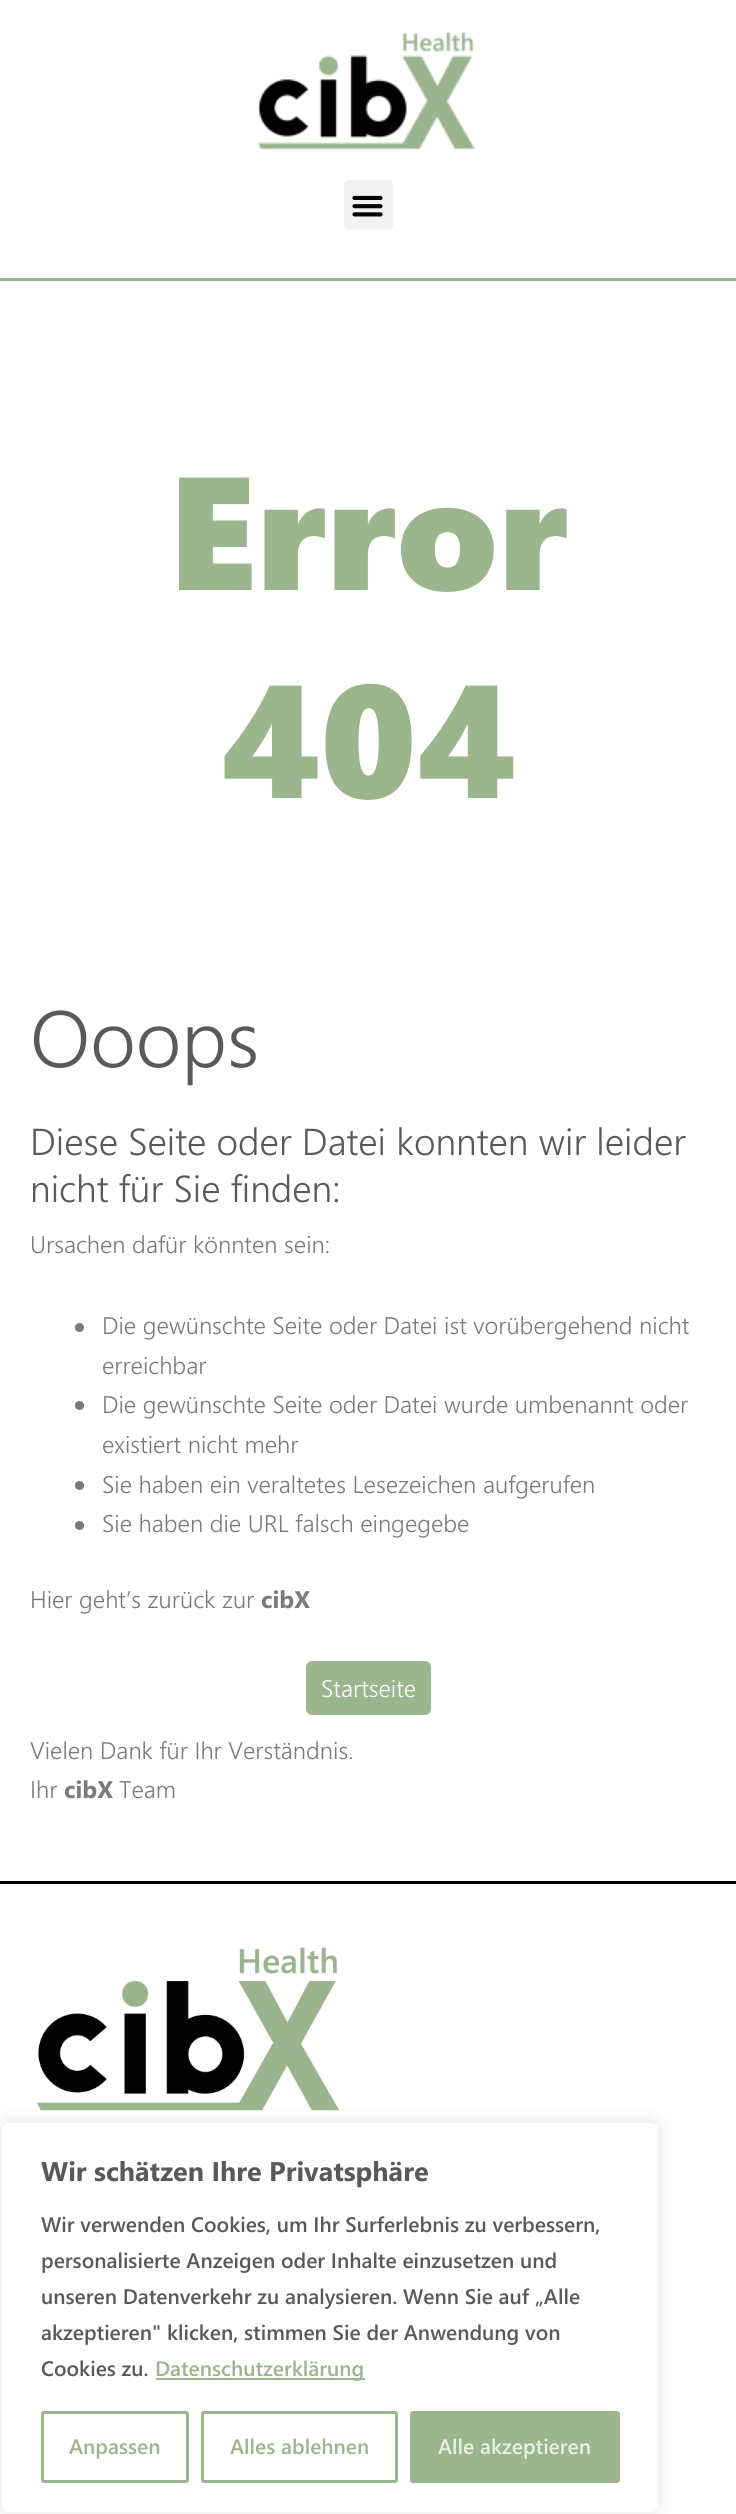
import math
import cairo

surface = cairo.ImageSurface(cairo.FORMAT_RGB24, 736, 2514)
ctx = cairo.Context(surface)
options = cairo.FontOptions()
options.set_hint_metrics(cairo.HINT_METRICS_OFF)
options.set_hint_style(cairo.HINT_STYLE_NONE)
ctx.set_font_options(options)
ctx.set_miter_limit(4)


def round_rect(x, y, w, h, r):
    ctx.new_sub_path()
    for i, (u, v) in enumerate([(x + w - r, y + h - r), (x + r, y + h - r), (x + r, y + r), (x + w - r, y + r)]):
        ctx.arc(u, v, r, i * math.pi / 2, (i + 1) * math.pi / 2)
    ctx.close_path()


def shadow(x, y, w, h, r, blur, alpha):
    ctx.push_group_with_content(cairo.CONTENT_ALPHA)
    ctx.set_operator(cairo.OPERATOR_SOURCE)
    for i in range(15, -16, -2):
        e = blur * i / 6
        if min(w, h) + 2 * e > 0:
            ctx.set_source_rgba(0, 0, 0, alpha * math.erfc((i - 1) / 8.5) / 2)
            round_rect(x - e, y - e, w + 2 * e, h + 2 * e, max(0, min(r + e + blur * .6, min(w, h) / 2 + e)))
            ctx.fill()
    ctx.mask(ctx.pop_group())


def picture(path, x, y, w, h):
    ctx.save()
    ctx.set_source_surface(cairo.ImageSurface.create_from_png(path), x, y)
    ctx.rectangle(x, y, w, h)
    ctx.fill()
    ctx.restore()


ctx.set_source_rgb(1, 1, 1)
ctx.paint()
ctx.set_source_rgb(0.608, 0.71, 0.553)
ctx.rectangle(0, 278, 736, 3)
ctx.fill()
picture("img1.png", 257, 31, 218, 119)
ctx.set_source_rgb(0.949, 0.949, 0.949)
round_rect(344, 180, 49, 50, 5)
ctx.fill()
picture("img2.png", 352, 195, 31, 22)
ctx.select_font_face("Segoe UI Black")
ctx.set_font_size(160.5)
ctx.set_source_rgb(0.608, 0.71, 0.553)
ctx.move_to(168, 590)
ctx.show_text("Error")
ctx.move_to(221, 798)
ctx.show_text("404")
ctx.select_font_face("Segoe UI Light")
ctx.set_font_size(79.5)
ctx.set_source_rgb(0.349, 0.349, 0.353)
ctx.move_to(30, 1067)
ctx.show_text("Ooops")
ctx.set_font_size(37.5)
ctx.move_to(30, 1155)
ctx.show_text("Diese Seite oder Datei konnten wir leider")
ctx.move_to(30, 1202)
ctx.show_text("nicht für Sie finden:")
ctx.set_font_size(24)
ctx.set_source_rgb(0.478, 0.478, 0.478)
ctx.move_to(30, 1253)
ctx.show_text("Ursachen dafür könnten sein:")
ctx.new_path()
ctx.arc(79.5, 1327.5, 4.5, 0, 2 * math.pi)
ctx.fill()
ctx.move_to(102, 1334)
ctx.show_text("Die gewünschte Seite oder Datei ist vorübergehend nicht")
ctx.move_to(102, 1374)
ctx.show_text("erreichbar")
ctx.new_path()
ctx.arc(79.5, 1405.5, 4.5, 0, 2 * math.pi)
ctx.fill()
ctx.move_to(102, 1413)
ctx.show_text("Die gewünschte Seite oder Datei wurde umbenannt oder")
ctx.move_to(102, 1453)
ctx.show_text("existiert nicht mehr")
ctx.new_path()
ctx.arc(79.5, 1485.5, 4.5, 0, 2 * math.pi)
ctx.fill()
ctx.move_to(102, 1493)
ctx.show_text("Sie haben ein veraltetes Lesezeichen aufgerufen")
ctx.new_path()
ctx.arc(79.5, 1525.5, 4.5, 0, 2 * math.pi)
ctx.fill()
ctx.move_to(102, 1532)
ctx.show_text("Sie haben die URL falsch eingegebe")
ctx.move_to(30, 1608)
ctx.show_text("Hier geht’s zurück zur")
ctx.select_font_face("Segoe UI", cairo.FONT_SLANT_NORMAL, cairo.FONT_WEIGHT_BOLD)
ctx.move_to(261, 1608)
ctx.show_text("cibX")
ctx.set_source_rgb(0.608, 0.71, 0.553)
round_rect(306, 1661, 125, 54, 6)
ctx.fill()
ctx.select_font_face("Segoe UI Light")
ctx.set_source_rgb(1, 1, 1)
ctx.move_to(321, 1697)
ctx.show_text("Startseite")
ctx.set_source_rgb(0.478, 0.478, 0.478)
ctx.move_to(30, 1759)
ctx.show_text("Vielen Dank für Ihr Verständnis.")
ctx.move_to(30, 1798)
ctx.show_text("Ihr")
ctx.select_font_face("Segoe UI", cairo.FONT_SLANT_NORMAL, cairo.FONT_WEIGHT_BOLD)
ctx.move_to(64, 1798)
ctx.show_text("cibX")
ctx.select_font_face("Segoe UI Light")
ctx.move_to(119, 1798)
ctx.show_text("Team")
ctx.set_source_rgb(0, 0, 0)
ctx.rectangle(0, 1881, 736, 3)
ctx.fill()
picture("img3.png", 37, 1947, 303, 164)
ctx.set_source_rgb(0.675, 0.671, 0.671)
shadow(0, 2120, 660, 393, 9, 7.5, 0.3)
ctx.set_source_rgb(1, 1, 1)
round_rect(1, 2122, 658, 391, 8)
ctx.fill_preserve()
ctx.set_source_rgb(0.957, 0.957, 0.957)
ctx.stroke()
ctx.select_font_face("Segoe UI", cairo.FONT_SLANT_NORMAL, cairo.FONT_WEIGHT_BOLD)
ctx.set_font_size(27)
ctx.set_source_rgb(0.349, 0.349, 0.353)
ctx.move_to(41, 2181)
ctx.show_text("Wir schätzen Ihre Privatsphäre")
ctx.select_font_face("Segoe UI SemiBold")
ctx.set_font_size(21)
ctx.move_to(41, 2232)
ctx.show_text("Wir verwenden Cookies, um Ihr Surferlebnis zu verbessern,")
ctx.move_to(41, 2268)
ctx.show_text("personalisierte Anzeigen oder Inhalte einzusetzen und")
ctx.move_to(41, 2304)
ctx.show_text("unseren Datenverkehr zu analysieren. Wenn Sie auf „Alle")
ctx.move_to(41, 2340)
ctx.show_text("akzeptieren\" klicken, stimmen Sie der Anwendung von")
ctx.move_to(41, 2376)
ctx.show_text("Cookies zu.")
ctx.set_source_rgb(0.608, 0.71, 0.553)
ctx.rectangle(156, 2378, 209, 2)
ctx.fill()
ctx.move_to(155, 2376)
ctx.show_text("Datenschutzerklärung")
round_rect(42.5, 2412.5, 145, 69, 1.5)
ctx.set_line_width(3)
ctx.stroke()
ctx.move_to(69, 2454)
ctx.show_text("Anpassen")
round_rect(202.5, 2412.5, 194, 69, 1.5)
ctx.stroke()
ctx.move_to(230, 2454)
ctx.show_text("Alles ablehnen")
round_rect(411.5, 2412.5, 207, 69, 1.5)
ctx.fill_preserve()
ctx.stroke()
ctx.set_source_rgb(0.906, 0.945, 0.886)
ctx.move_to(438, 2454)
ctx.show_text("Alle akzeptieren")
surface.write_to_png("page.png")
